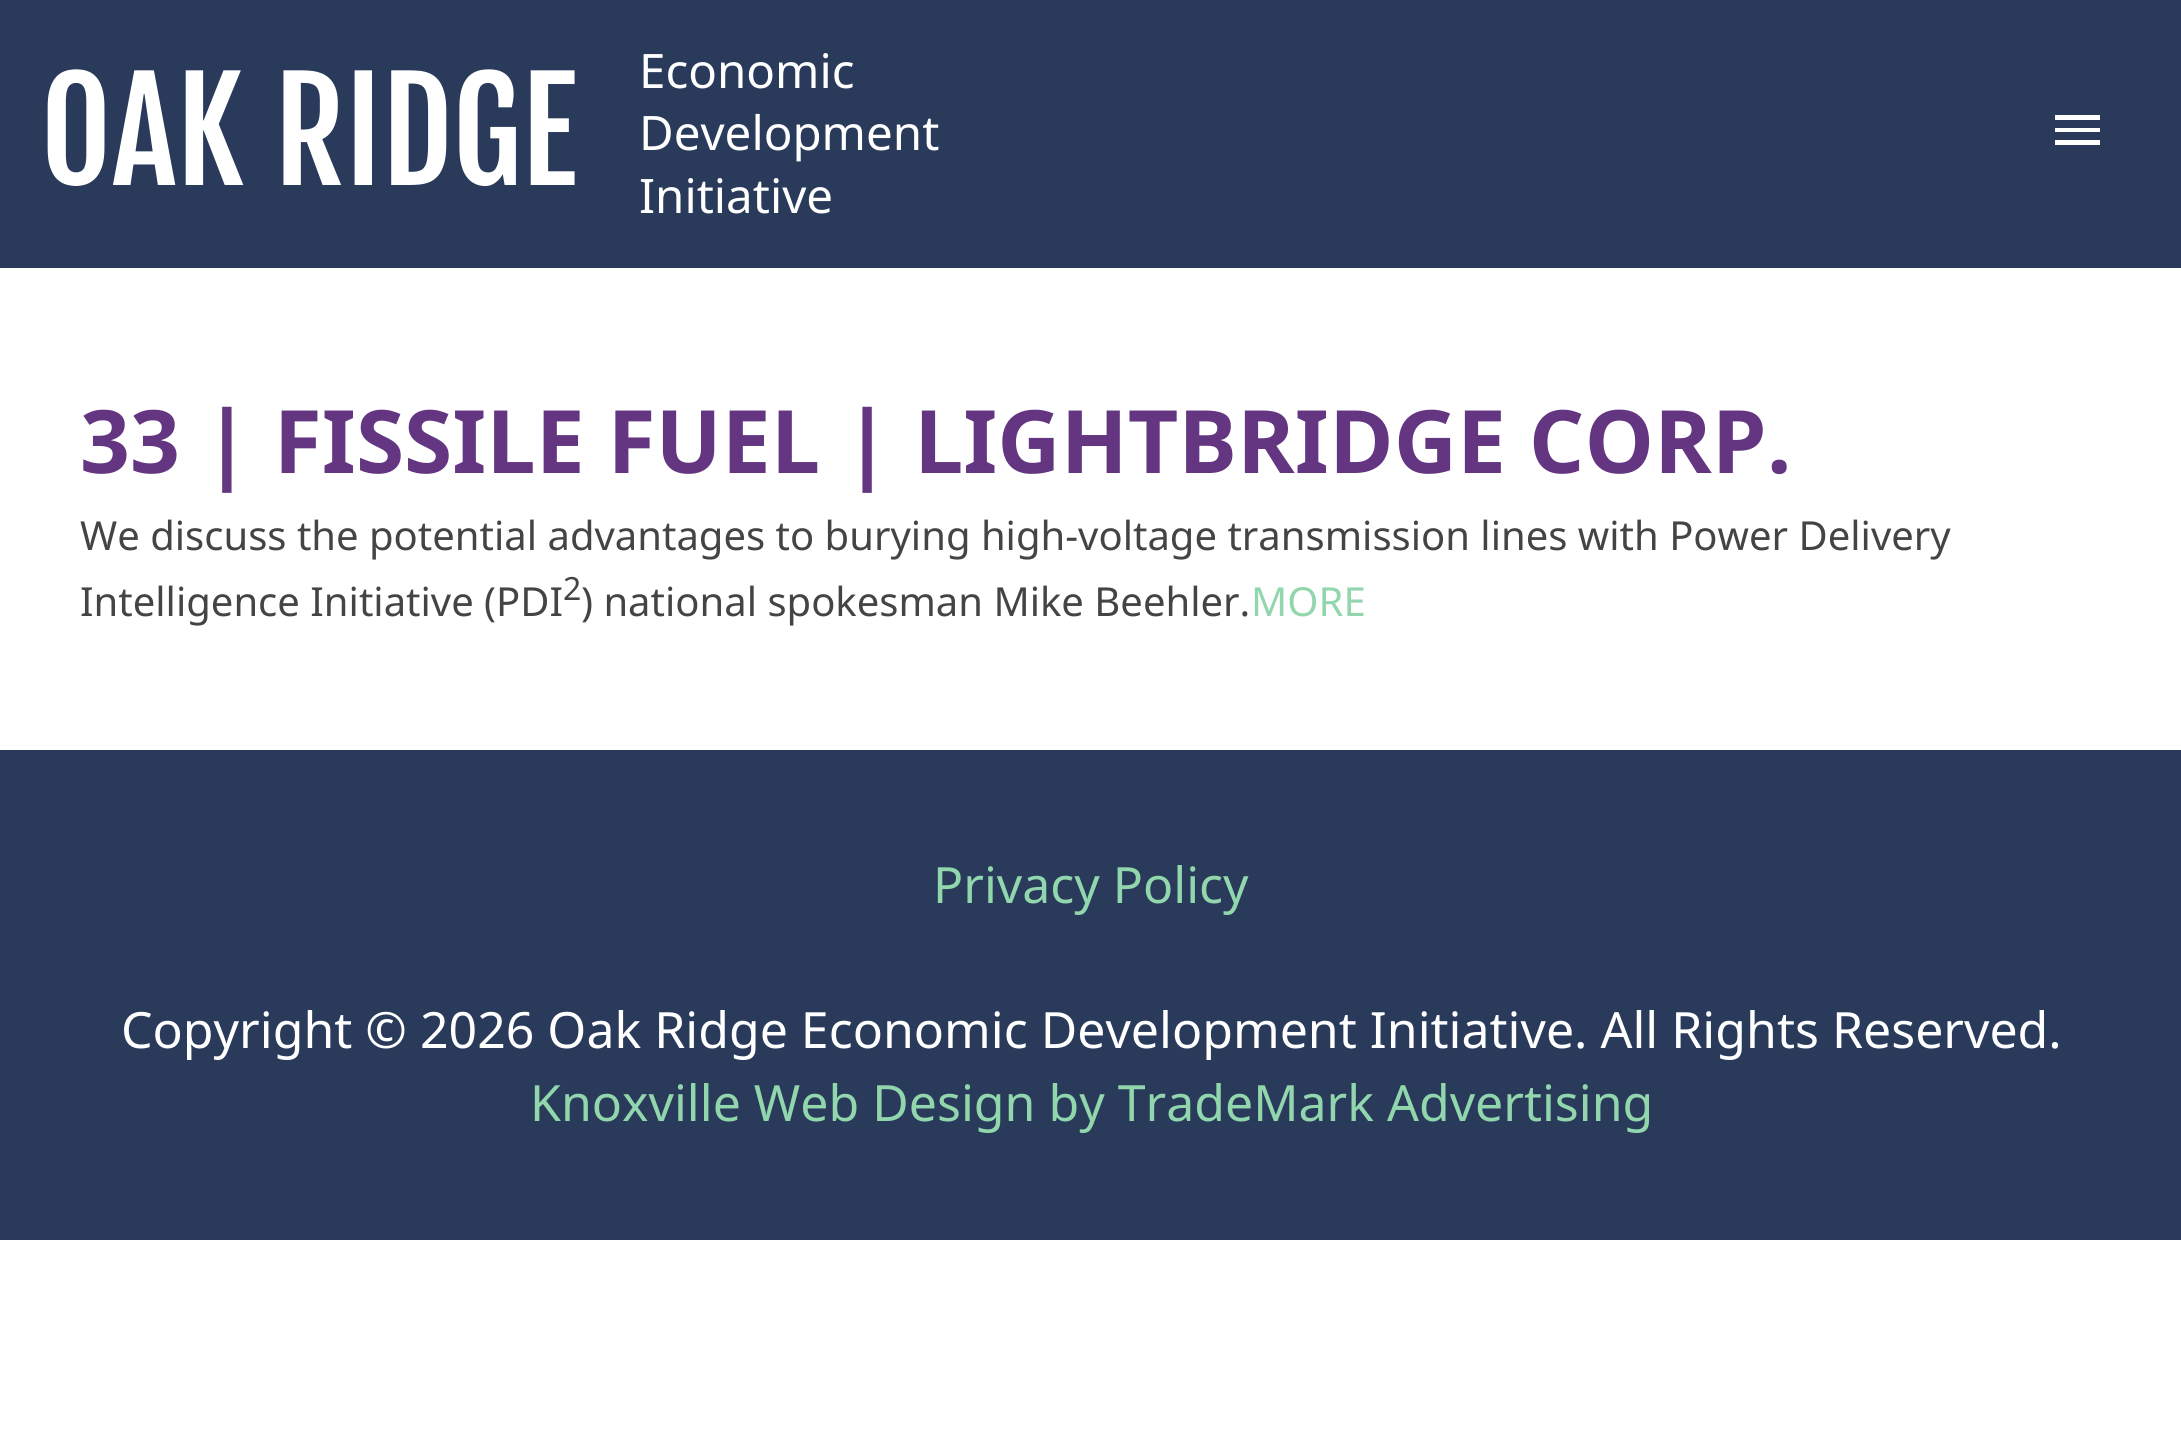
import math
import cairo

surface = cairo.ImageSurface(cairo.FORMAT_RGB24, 2181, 1456)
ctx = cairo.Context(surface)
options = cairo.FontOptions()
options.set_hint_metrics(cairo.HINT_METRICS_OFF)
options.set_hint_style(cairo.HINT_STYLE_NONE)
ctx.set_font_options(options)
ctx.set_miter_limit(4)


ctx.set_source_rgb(1, 1, 1)
ctx.paint()
ctx.set_source_rgb(0.161, 0.227, 0.357)
ctx.rectangle(0, 0, 2181, 268)
ctx.fill()
ctx.select_font_face("Fjalla One")
ctx.set_font_size(137.5)
ctx.set_source_rgb(1, 1, 1)
ctx.move_to(40, 185)
ctx.show_text("OAK RIDGE")
ctx.select_font_face("Noto Sans")
ctx.set_font_size(47.5)
ctx.move_to(639, 88)
ctx.show_text("Economic")
ctx.move_to(639, 150)
ctx.show_text("Development")
ctx.move_to(639, 213)
ctx.show_text("Initiative")
ctx.new_path()
ctx.move_to(2055, 115)
ctx.line_to(2100, 115)
ctx.line_to(2100, 120)
ctx.line_to(2055, 120)
ctx.close_path()
ctx.move_to(2055, 132)
ctx.line_to(2055, 128)
ctx.line_to(2100, 128)
ctx.line_to(2100, 132)
ctx.close_path()
ctx.move_to(2055, 145)
ctx.line_to(2055, 140)
ctx.line_to(2100, 140)
ctx.line_to(2100, 145)
ctx.close_path()
ctx.fill()
ctx.select_font_face("Noto Sans", cairo.FONT_SLANT_NORMAL, cairo.FONT_WEIGHT_BOLD)
ctx.set_font_size(87.5)
ctx.set_source_rgb(0.392, 0.208, 0.506)
ctx.move_to(80, 473)
ctx.show_text("33 | FISSILE FUEL | LIGHTBRIDGE CORP.")
ctx.select_font_face("Noto Sans")
ctx.set_font_size(40)
ctx.set_source_rgb(0.267, 0.267, 0.267)
ctx.move_to(80, 550)
ctx.show_text("We discuss the potential advantages to burying high-voltage transmission lines with Power Delivery")
ctx.move_to(80, 616)
ctx.show_text("Intelligence Initiative (PDI")
ctx.set_font_size(32)
ctx.move_to(563, 600)
ctx.show_text("2")
ctx.set_font_size(40)
ctx.move_to(581, 616)
ctx.show_text(") national spokesman Mike Beehler.")
ctx.set_source_rgb(0.569, 0.839, 0.675)
ctx.move_to(1251, 616)
ctx.show_text("MORE")
ctx.set_source_rgb(0.161, 0.227, 0.357)
ctx.rectangle(0, 750, 2181, 490)
ctx.fill()
ctx.set_font_size(50)
ctx.set_source_rgb(0.569, 0.839, 0.675)
ctx.move_to(933, 903)
ctx.show_text("Privacy Policy")
ctx.set_source_rgb(1, 1, 1)
ctx.move_to(121, 1048)
ctx.show_text("Copyright © 2026 Oak Ridge Economic Development Initiative. All Rights Reserved.")
ctx.set_source_rgb(0.569, 0.839, 0.675)
ctx.move_to(530, 1121)
ctx.show_text("Knoxville Web Design by TradeMark Advertising")
surface.write_to_png("page.png")
